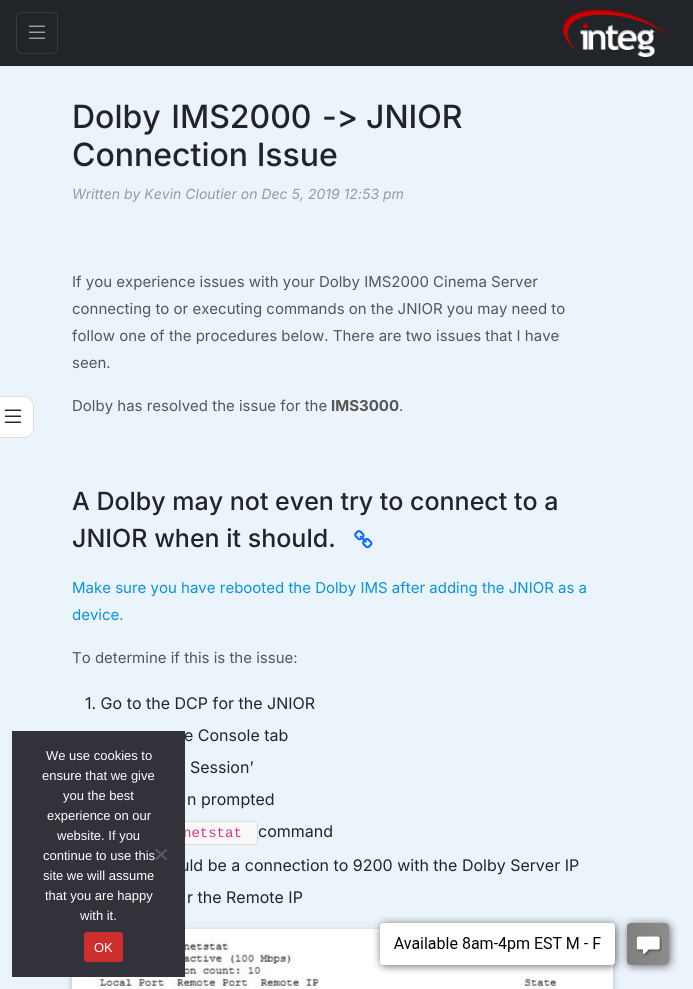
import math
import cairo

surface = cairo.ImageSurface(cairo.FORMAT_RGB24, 693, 989)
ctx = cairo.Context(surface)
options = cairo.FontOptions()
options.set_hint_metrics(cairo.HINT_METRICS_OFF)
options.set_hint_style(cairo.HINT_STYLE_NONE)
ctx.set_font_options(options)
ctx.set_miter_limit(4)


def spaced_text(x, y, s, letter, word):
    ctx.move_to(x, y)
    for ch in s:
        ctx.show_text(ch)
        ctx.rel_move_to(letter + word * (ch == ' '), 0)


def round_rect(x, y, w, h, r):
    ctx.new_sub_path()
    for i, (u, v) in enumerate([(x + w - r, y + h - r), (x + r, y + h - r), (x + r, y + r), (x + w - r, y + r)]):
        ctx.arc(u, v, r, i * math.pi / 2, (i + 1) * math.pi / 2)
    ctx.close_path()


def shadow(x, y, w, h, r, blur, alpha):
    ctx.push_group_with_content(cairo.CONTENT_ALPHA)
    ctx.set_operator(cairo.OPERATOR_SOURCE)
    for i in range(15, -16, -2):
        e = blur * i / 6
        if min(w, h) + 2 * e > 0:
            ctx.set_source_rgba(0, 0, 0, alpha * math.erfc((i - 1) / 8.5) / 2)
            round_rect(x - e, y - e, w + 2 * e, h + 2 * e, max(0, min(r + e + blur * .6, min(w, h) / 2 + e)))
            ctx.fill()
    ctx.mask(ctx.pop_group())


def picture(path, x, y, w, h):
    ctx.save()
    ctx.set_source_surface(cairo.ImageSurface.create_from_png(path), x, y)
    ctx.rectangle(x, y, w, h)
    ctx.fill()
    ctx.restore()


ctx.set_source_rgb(0.922, 0.957, 0.984)
ctx.paint()
ctx.set_source_rgb(0.129, 0.145, 0.161)
ctx.rectangle(0, 0, 693, 66)
ctx.fill()
round_rect(16.5, 12.5, 41, 41, 5.5)
ctx.set_source_rgb(0.216, 0.231, 0.243)
ctx.set_line_width(1)
ctx.stroke()
picture("img1.png", 28, 25, 18, 14)
picture("img2.png", 563, 9, 106, 48)
ctx.set_source_rgb(1, 1, 1)
ctx.new_path()
ctx.move_to(-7.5, 396.5)
ctx.line_to(24, 396.5)
ctx.curve_to(29, 396.5, 33.5, 401, 33.5, 406)
ctx.line_to(33.5, 428)
ctx.curve_to(33.5, 433, 29, 437.5, 24, 437.5)
ctx.line_to(-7.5, 437.5)
ctx.close_path()
ctx.fill_preserve()
ctx.set_source_rgb(0.867, 0.867, 0.867)
ctx.stroke()
picture("img3.png", 4, 409, 18, 14)
ctx.select_font_face("Inter Medium")
ctx.set_font_size(32)
ctx.set_source_rgb(0.129, 0.145, 0.161)
spaced_text(72, 128, "Dolby IMS2000 ->", 0, 2)
spaced_text(366, 128, "JNIOR", 0, 2)
ctx.move_to(72, 166)
ctx.show_text("Connection Issue")
ctx.select_font_face("Inter", cairo.FONT_SLANT_ITALIC)
ctx.set_font_size(14)
ctx.set_source_rgb(0.6, 0.6, 0.6)
ctx.move_to(72, 199)
ctx.show_text("Written by Kevin Cloutier on Dec 5, 2019 12:53 pm")
ctx.select_font_face("Inter")
ctx.set_font_size(15)
ctx.set_source_rgb(0.333, 0.333, 0.333)
ctx.move_to(72, 287)
ctx.show_text("If you experience issues with your Dolby IMS2000 Cinema Server")
ctx.move_to(72, 314)
ctx.show_text("connecting to or executing commands on the JNIOR you may need to")
ctx.move_to(72, 341)
ctx.show_text("follow one of the procedures below. There are two issues that I have")
ctx.move_to(72, 368)
ctx.show_text("seen.")
ctx.move_to(72, 411)
ctx.show_text("Dolby has resolved the issue for the")
ctx.select_font_face("Inter", cairo.FONT_SLANT_NORMAL, cairo.FONT_WEIGHT_BOLD)
ctx.move_to(331, 411)
ctx.show_text("IMS3000")
ctx.select_font_face("Inter")
ctx.move_to(399, 411)
ctx.show_text(".")
ctx.select_font_face("Inter Medium")
ctx.set_font_size(25)
ctx.set_source_rgb(0.129, 0.145, 0.161)
ctx.move_to(72, 510)
ctx.show_text("A Dolby may not even try to connect to a")
ctx.move_to(72, 547)
ctx.show_text("JNIOR when it should.")
picture("img4.png", 354, 530, 19, 19)
ctx.select_font_face("Inter")
ctx.set_font_size(15)
ctx.set_source_rgb(0.024, 0.576, 0.89)
ctx.move_to(72, 593)
ctx.show_text("Make sure you have rebooted the Dolby IMS after adding the JNIOR as a")
ctx.move_to(72, 620)
ctx.show_text("device.")
ctx.set_source_rgb(0.333, 0.333, 0.333)
ctx.move_to(72, 663)
ctx.show_text("To determine if this is the issue:")
ctx.set_font_size(16)
ctx.set_source_rgb(0.129, 0.145, 0.161)
ctx.move_to(85, 709)
ctx.show_text("1. Go to the DCP for the JNIOR")
ctx.move_to(184, 741)
ctx.show_text("e Console tab")
ctx.move_to(190, 773)
ctx.show_text("Session’")
ctx.move_to(187, 805)
ctx.show_text("n prompted")
ctx.set_source_rgb(0.973, 0.973, 0.973)
round_rect(176.5, 821.5, 81, 23, 3.5)
ctx.fill_preserve()
ctx.set_source_rgb(0.867, 0.867, 0.867)
ctx.stroke()
ctx.select_font_face("Liberation Mono")
ctx.set_font_size(14)
ctx.set_source_rgb(0.839, 0.2, 0.518)
ctx.move_to(183, 837)
ctx.show_text("netstat")
ctx.select_font_face("Inter")
ctx.set_font_size(16)
ctx.set_source_rgb(0.129, 0.145, 0.161)
ctx.move_to(258, 837)
ctx.show_text("command")
ctx.move_to(180, 871)
ctx.show_text("uld be a connection to 9200 with the Dolby Server IP")
ctx.move_to(187, 903)
ctx.show_text("r the Remote IP")
ctx.set_source_rgb(0, 0, 0)
shadow(72, 931, 541, 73, 0, 5, 0.12)
shadow(72, 931, 541, 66, 0, 2.5, 0.16)
ctx.set_source_rgb(1, 1, 1)
ctx.rectangle(72, 929, 541, 60)
ctx.fill()
picture("img5.png", 82, 939, 476, 50)
ctx.set_source_rgb(0.196, 0.196, 0.227)
ctx.rectangle(12, 731, 173, 246)
ctx.fill()
ctx.select_font_face("Liberation Sans")
ctx.set_font_size(13)
ctx.set_source_rgb(1, 1, 1)
ctx.move_to(46, 760)
ctx.show_text("We use cookies to")
ctx.move_to(42, 780)
ctx.show_text("ensure that we give")
ctx.move_to(63, 800)
ctx.show_text("you the best")
ctx.move_to(47, 820)
ctx.show_text("experience on our")
ctx.move_to(57, 840)
ctx.show_text("website. If you")
ctx.move_to(43, 860)
ctx.show_text("continue to use this")
ctx.move_to(43, 880)
ctx.show_text("site we will assume")
ctx.move_to(45, 900)
ctx.show_text("that you are happy")
ctx.move_to(80, 920)
ctx.show_text("with it.")
ctx.set_source_rgb(0.349, 0.349, 0.365)
ctx.new_path()
ctx.move_to(166, 848.5)
ctx.line_to(167.5, 850)
ctx.line_to(156.5, 860.5)
ctx.line_to(155, 859)
ctx.close_path()
ctx.fill()
ctx.new_path()
ctx.move_to(155, 850)
ctx.line_to(156.5, 848.5)
ctx.line_to(167.5, 859)
ctx.line_to(166, 860.5)
ctx.close_path()
ctx.fill()
ctx.set_source_rgb(0.812, 0.18, 0.18)
round_rect(84, 932, 39, 30, 3)
ctx.fill()
ctx.set_source_rgb(1, 1, 1)
ctx.move_to(94, 952)
ctx.show_text("OK")
picture("img6.png", 373, 916, 305, 58)
surface.write_to_png("page.png")
